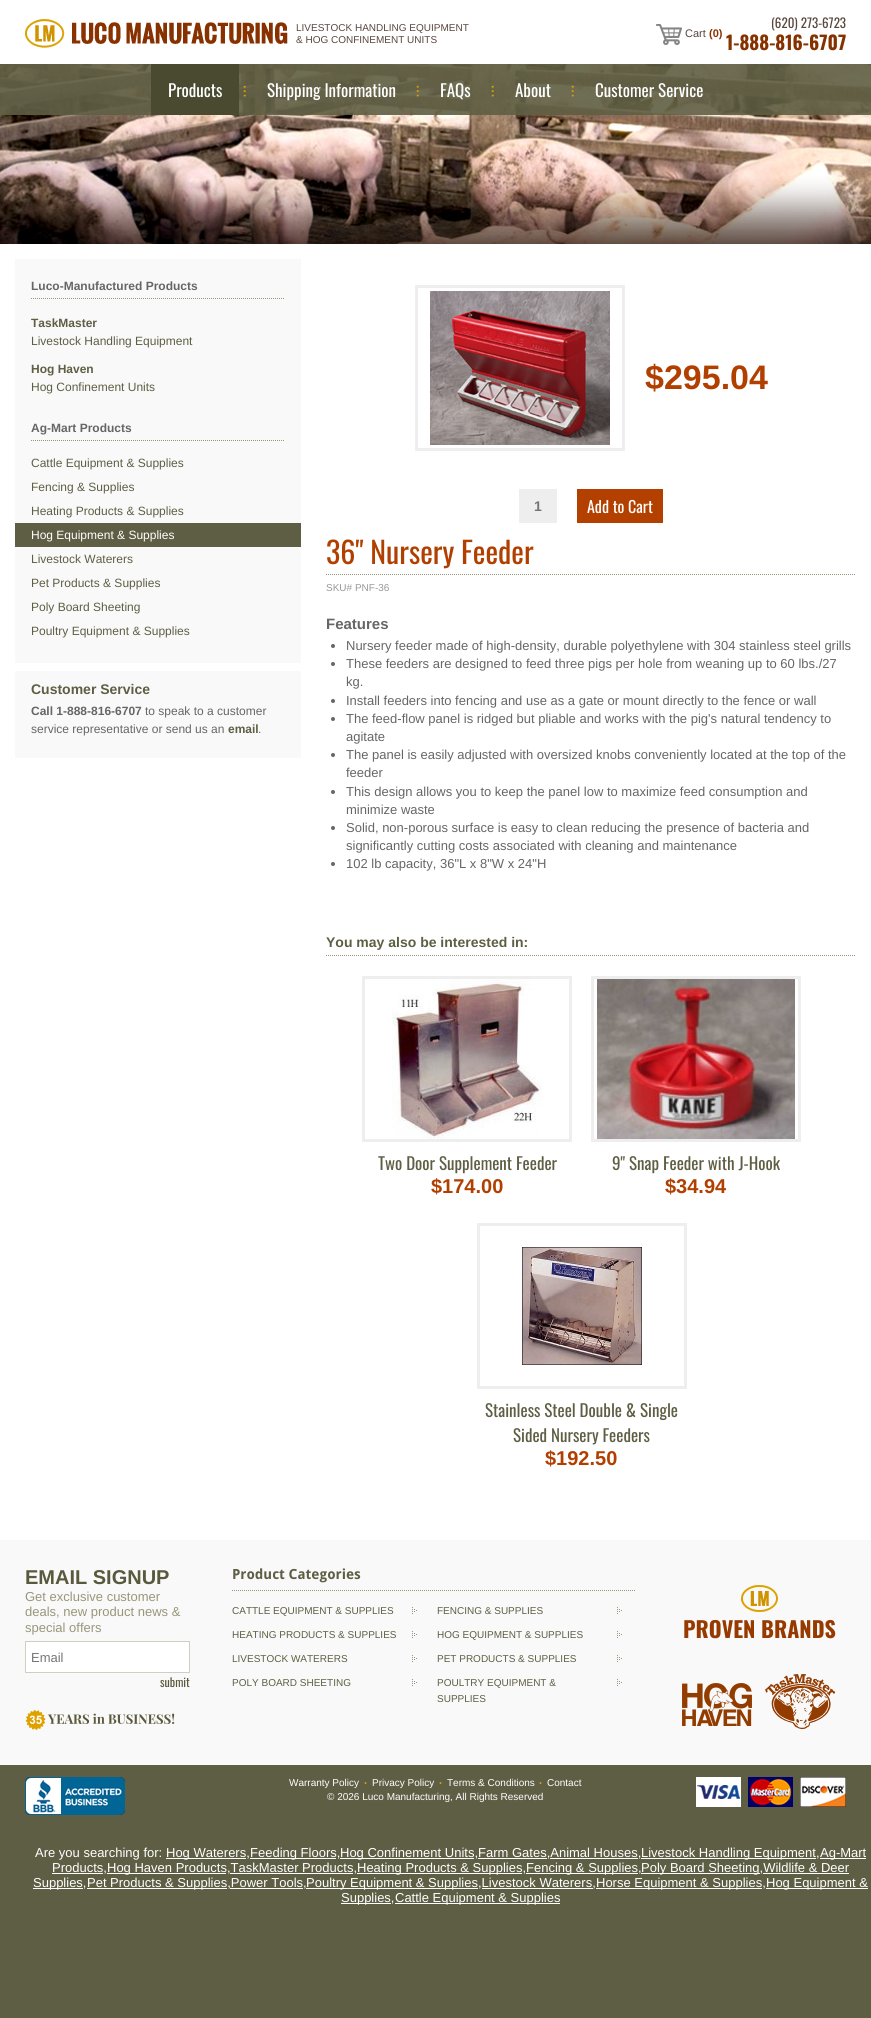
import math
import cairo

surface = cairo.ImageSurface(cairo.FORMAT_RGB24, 871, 2018)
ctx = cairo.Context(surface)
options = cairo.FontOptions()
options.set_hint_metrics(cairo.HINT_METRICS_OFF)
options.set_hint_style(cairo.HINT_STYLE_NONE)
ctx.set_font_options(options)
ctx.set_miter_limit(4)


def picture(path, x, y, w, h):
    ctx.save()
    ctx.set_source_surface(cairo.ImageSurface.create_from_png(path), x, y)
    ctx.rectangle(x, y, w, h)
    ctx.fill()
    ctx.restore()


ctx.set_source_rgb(0.369, 0.369, 0.267)
ctx.paint()
ctx.set_source_rgb(1, 1, 1)
ctx.rectangle(0, 0, 871, 64)
ctx.fill()
picture("img1.png", 25, 19, 263, 29)
ctx.select_font_face("Liberation Sans")
ctx.set_font_size(10)
ctx.set_source_rgb(0.349, 0.275, 0.243)
ctx.move_to(296, 31)
ctx.show_text("LIVESTOCK HANDLING EQUIPMENT")
ctx.move_to(296, 43)
ctx.show_text("& HOG CONFINEMENT UNITS")
picture("img2.png", 656, 24, 26, 21)
ctx.set_font_size(11)
ctx.move_to(685, 37)
ctx.show_text("Cart")
ctx.select_font_face("Liberation Sans", cairo.FONT_SLANT_NORMAL, cairo.FONT_WEIGHT_BOLD)
ctx.set_source_rgb(0.549, 0.192, 0)
ctx.move_to(709, 37)
ctx.show_text("(0)")
ctx.select_font_face("Oswald")
ctx.set_font_size(13)
ctx.set_source_rgb(0.349, 0.275, 0.243)
ctx.move_to(771, 28)
ctx.show_text("(620) 273-6723")
ctx.select_font_face("Oswald", cairo.FONT_SLANT_NORMAL, cairo.FONT_WEIGHT_BOLD)
ctx.set_font_size(19)
ctx.set_source_rgb(0.525, 0.192, 0)
ctx.move_to(726, 50)
ctx.show_text("1-888-816-6707")
picture("img3.png", 0, 64, 871, 180)
ctx.set_source_rgba(0.369, 0.369, 0.267, 0.9)
ctx.rectangle(0, 64, 871, 51)
ctx.fill()
ctx.set_source_rgb(0.29, 0.29, 0.192)
ctx.rectangle(151, 64, 88, 51)
ctx.fill()
ctx.select_font_face("Oswald")
ctx.set_font_size(17)
ctx.set_source_rgb(1, 1, 1)
ctx.move_to(168, 97)
ctx.show_text("Products")
picture("img4.png", 243, 85, 3, 12)
ctx.move_to(267, 97)
ctx.show_text("Shipping Information")
picture("img5.png", 416, 85, 3, 12)
ctx.move_to(440, 97)
ctx.show_text("FAQs")
picture("img6.png", 491, 85, 3, 12)
ctx.move_to(515, 97)
ctx.show_text("About")
picture("img7.png", 571, 85, 3, 12)
ctx.move_to(595, 97)
ctx.show_text("Customer Service")
ctx.rectangle(0, 244, 871, 1296)
ctx.fill()
ctx.set_source_rgb(0.976, 0.976, 0.976)
ctx.rectangle(15, 259, 286, 404)
ctx.fill()
ctx.new_path()
ctx.move_to(31, 298.5)
ctx.line_to(285, 298.5)
ctx.set_source_rgb(0.6, 0.588, 0.478)
ctx.set_line_width(1)
ctx.set_dash([1, 1])
ctx.stroke()
ctx.select_font_face("Liberation Sans", cairo.FONT_SLANT_NORMAL, cairo.FONT_WEIGHT_BOLD)
ctx.set_font_size(12)
ctx.set_source_rgb(0.4, 0.4, 0.4)
ctx.move_to(31, 290)
ctx.show_text("Luco-Manufactured Products")
ctx.set_source_rgb(0.369, 0.369, 0.267)
ctx.move_to(31, 327)
ctx.show_text("TaskMaster")
ctx.select_font_face("Liberation Sans")
ctx.move_to(31, 345)
ctx.show_text("Livestock Handling Equipment")
ctx.select_font_face("Liberation Sans", cairo.FONT_SLANT_NORMAL, cairo.FONT_WEIGHT_BOLD)
ctx.move_to(31, 373)
ctx.show_text("Hog Haven")
ctx.select_font_face("Liberation Sans")
ctx.move_to(31, 391)
ctx.show_text("Hog Confinement Units")
ctx.new_path()
ctx.move_to(31, 440.5)
ctx.line_to(285, 440.5)
ctx.set_source_rgb(0.6, 0.588, 0.478)
ctx.stroke()
ctx.select_font_face("Liberation Sans", cairo.FONT_SLANT_NORMAL, cairo.FONT_WEIGHT_BOLD)
ctx.set_source_rgb(0.4, 0.4, 0.4)
ctx.move_to(31, 432)
ctx.show_text("Ag-Mart Products")
ctx.select_font_face("Liberation Sans")
ctx.set_source_rgb(0.369, 0.369, 0.267)
ctx.move_to(31, 467)
ctx.show_text("Cattle Equipment & Supplies")
ctx.move_to(31, 491)
ctx.show_text("Fencing & Supplies")
ctx.move_to(31, 515)
ctx.show_text("Heating Products & Supplies")
ctx.rectangle(15, 523, 286, 24)
ctx.fill()
ctx.set_source_rgb(1, 1, 1)
ctx.move_to(31, 539)
ctx.show_text("Hog Equipment & Supplies")
ctx.set_source_rgb(0.369, 0.369, 0.267)
ctx.move_to(31, 563)
ctx.show_text("Livestock Waterers")
ctx.move_to(31, 587)
ctx.show_text("Pet Products & Supplies")
ctx.move_to(31, 611)
ctx.show_text("Poly Board Sheeting")
ctx.move_to(31, 635)
ctx.show_text("Poultry Equipment & Supplies")
ctx.set_source_rgb(0.976, 0.976, 0.976)
ctx.rectangle(15, 671, 286, 87)
ctx.fill()
ctx.select_font_face("Liberation Sans", cairo.FONT_SLANT_NORMAL, cairo.FONT_WEIGHT_BOLD)
ctx.set_font_size(14)
ctx.set_source_rgb(0.369, 0.369, 0.267)
ctx.move_to(31, 694)
ctx.show_text("Customer Service")
ctx.set_font_size(12)
ctx.set_source_rgb(0.4, 0.4, 0.4)
ctx.move_to(31, 715)
ctx.show_text("Call 1-888-816-6707")
ctx.select_font_face("Liberation Sans")
ctx.move_to(145, 715)
ctx.show_text("to speak to a customer")
ctx.move_to(31, 733)
ctx.show_text("service representative or send us an")
ctx.select_font_face("Liberation Sans", cairo.FONT_SLANT_NORMAL, cairo.FONT_WEIGHT_BOLD)
ctx.set_source_rgb(0.369, 0.369, 0.267)
ctx.move_to(228, 733)
ctx.show_text("email")
ctx.select_font_face("Liberation Sans")
ctx.set_source_rgb(0.4, 0.4, 0.4)
ctx.move_to(258, 733)
ctx.show_text(".")
ctx.rectangle(416.5, 286.5, 207, 163)
ctx.set_source_rgb(0.933, 0.933, 0.933)
ctx.set_line_width(3)
ctx.set_dash([])
ctx.stroke()
picture("img8.png", 430, 291, 180, 154)
ctx.select_font_face("Liberation Sans", cairo.FONT_SLANT_NORMAL, cairo.FONT_WEIGHT_BOLD)
ctx.set_font_size(34)
ctx.set_source_rgb(0.694, 0.247, 0)
ctx.move_to(645, 389)
ctx.show_text("$295.04")
ctx.set_source_rgb(0.933, 0.933, 0.933)
ctx.rectangle(519, 489, 38, 34)
ctx.fill()
ctx.set_font_size(14)
ctx.set_source_rgb(0.459, 0.459, 0.459)
ctx.move_to(534, 511)
ctx.show_text("1")
ctx.set_source_rgb(0.706, 0.251, 0)
ctx.rectangle(577, 489, 86, 34)
ctx.fill()
ctx.select_font_face("Oswald")
ctx.set_font_size(16)
ctx.set_source_rgb(1, 1, 1)
ctx.move_to(587, 513)
ctx.show_text("Add to Cart")
ctx.new_path()
ctx.move_to(326, 574.5)
ctx.line_to(856, 574.5)
ctx.set_source_rgb(0.604, 0.588, 0.486)
ctx.set_line_width(1)
ctx.set_dash([1, 1])
ctx.stroke()
ctx.set_font_size(30)
ctx.set_source_rgb(0.694, 0.247, 0)
ctx.move_to(326, 564)
ctx.show_text("36\" Nursery Feeder")
ctx.select_font_face("Liberation Sans")
ctx.set_font_size(10)
ctx.set_source_rgb(0.6, 0.6, 0.6)
ctx.move_to(326, 591)
ctx.show_text("SKU# PNF-36")
ctx.select_font_face("Liberation Sans", cairo.FONT_SLANT_NORMAL, cairo.FONT_WEIGHT_BOLD)
ctx.set_font_size(15)
ctx.set_source_rgb(0.4, 0.4, 0.4)
ctx.move_to(326, 629)
ctx.show_text("Features")
ctx.new_path()
ctx.arc(333, 646, 2, 0, 2 * math.pi)
ctx.fill()
ctx.select_font_face("Liberation Sans")
ctx.set_font_size(13)
ctx.move_to(346, 650)
ctx.show_text("Nursery feeder made of high-density, durable polyethylene with 304 stainless steel grills")
ctx.new_path()
ctx.arc(333, 664, 2, 0, 2 * math.pi)
ctx.fill()
ctx.move_to(346, 668)
ctx.show_text("These feeders are designed to feed three pigs per hole from weaning up to 60 lbs./27")
ctx.move_to(346, 686)
ctx.show_text("kg.")
ctx.new_path()
ctx.arc(333, 701, 2, 0, 2 * math.pi)
ctx.fill()
ctx.move_to(346, 705)
ctx.show_text("Install feeders into fencing and use as a gate or mount directly to the fence or wall")
ctx.new_path()
ctx.arc(333, 719, 2, 0, 2 * math.pi)
ctx.fill()
ctx.move_to(346, 723)
ctx.show_text("The feed-flow panel is ridged but pliable and works with the pig's natural tendency to")
ctx.move_to(346, 741)
ctx.show_text("agitate")
ctx.new_path()
ctx.arc(333, 755, 2, 0, 2 * math.pi)
ctx.fill()
ctx.move_to(346, 759)
ctx.show_text("The panel is easily adjusted with oversized knobs conveniently located at the top of the")
ctx.move_to(346, 777)
ctx.show_text("feeder")
ctx.new_path()
ctx.arc(333, 792, 2, 0, 2 * math.pi)
ctx.fill()
ctx.move_to(346, 796)
ctx.show_text("This design allows you to keep the panel low to maximize feed consumption and")
ctx.move_to(346, 814)
ctx.show_text("minimize waste")
ctx.new_path()
ctx.arc(333, 828, 2, 0, 2 * math.pi)
ctx.fill()
ctx.move_to(346, 832)
ctx.show_text("Solid, non-porous surface is easy to clean reducing the presence of bacteria and")
ctx.move_to(346, 850)
ctx.show_text("significantly cutting costs associated with cleaning and maintenance")
ctx.new_path()
ctx.arc(333, 864, 2, 0, 2 * math.pi)
ctx.fill()
ctx.move_to(346, 868)
ctx.show_text("102 lb capacity, 36\"L x 8\"W x 24\"H")
ctx.new_path()
ctx.move_to(326, 955.5)
ctx.line_to(856, 955.5)
ctx.set_source_rgb(0.604, 0.588, 0.486)
ctx.stroke()
ctx.select_font_face("Liberation Sans", cairo.FONT_SLANT_NORMAL, cairo.FONT_WEIGHT_BOLD)
ctx.set_font_size(14)
ctx.set_source_rgb(0.369, 0.369, 0.267)
ctx.move_to(326, 947)
ctx.show_text("You may also be interested in:")
ctx.rectangle(363.5, 977.5, 207, 163)
ctx.set_source_rgb(0.933, 0.933, 0.933)
ctx.set_line_width(3)
ctx.set_dash([])
ctx.stroke()
picture("img9.png", 392, 979, 151, 160)
ctx.select_font_face("Oswald")
ctx.set_font_size(17)
ctx.set_source_rgb(0.369, 0.369, 0.267)
ctx.move_to(378, 1170)
ctx.show_text("Two Door Supplement Feeder")
ctx.select_font_face("Liberation Sans", cairo.FONT_SLANT_NORMAL, cairo.FONT_WEIGHT_BOLD)
ctx.set_font_size(20)
ctx.set_source_rgb(0.694, 0.247, 0)
ctx.move_to(431, 1193)
ctx.show_text("$174.00")
ctx.rectangle(592.5, 977.5, 207, 163)
ctx.set_source_rgb(0.933, 0.933, 0.933)
ctx.stroke()
picture("img10.png", 597, 979, 198, 160)
ctx.select_font_face("Oswald")
ctx.set_font_size(17)
ctx.set_source_rgb(0.369, 0.369, 0.267)
ctx.move_to(612, 1170)
ctx.show_text("9\" Snap Feeder with J-Hook")
ctx.select_font_face("Liberation Sans", cairo.FONT_SLANT_NORMAL, cairo.FONT_WEIGHT_BOLD)
ctx.set_font_size(20)
ctx.set_source_rgb(0.694, 0.247, 0)
ctx.move_to(665, 1193)
ctx.show_text("$34.94")
ctx.rectangle(478.5, 1224.5, 207, 163)
ctx.set_source_rgb(0.933, 0.933, 0.933)
ctx.stroke()
picture("img11.png", 522, 1247, 120, 118)
ctx.select_font_face("Oswald")
ctx.set_font_size(17)
ctx.set_source_rgb(0.369, 0.369, 0.267)
ctx.move_to(485, 1417)
ctx.show_text("Stainless Steel Double & Single")
ctx.move_to(513, 1442)
ctx.show_text("Sided Nursery Feeders")
ctx.select_font_face("Liberation Sans", cairo.FONT_SLANT_NORMAL, cairo.FONT_WEIGHT_BOLD)
ctx.set_font_size(20)
ctx.set_source_rgb(0.694, 0.247, 0)
ctx.move_to(545, 1465)
ctx.show_text("$192.50")
ctx.set_source_rgb(0.976, 0.976, 0.976)
ctx.rectangle(0, 1540, 871, 225)
ctx.fill()
ctx.set_source_rgb(0.349, 0.349, 0.239)
ctx.move_to(25, 1584)
ctx.show_text("EMAIL SIGNUP")
ctx.select_font_face("Liberation Sans")
ctx.set_font_size(13)
ctx.set_source_rgb(0.6, 0.588, 0.478)
ctx.move_to(25, 1601)
ctx.show_text("Get exclusive customer")
ctx.move_to(25, 1616)
ctx.show_text("deals, new product news &")
ctx.move_to(25, 1632)
ctx.show_text("special offers")
ctx.set_source_rgb(1, 1, 1)
ctx.rectangle(25.5, 1641.5, 164, 31)
ctx.fill_preserve()
ctx.set_source_rgb(0.812, 0.808, 0.761)
ctx.set_line_width(1)
ctx.stroke()
ctx.set_source_rgb(0.459, 0.459, 0.459)
ctx.move_to(31, 1662)
ctx.show_text("Email")
ctx.select_font_face("Oswald")
ctx.set_font_size(12)
ctx.set_source_rgb(0.349, 0.349, 0.239)
ctx.move_to(160, 1687)
ctx.show_text("submit")
picture("img12.png", 25, 1710, 150, 20)
ctx.new_path()
ctx.move_to(232, 1590.5)
ctx.line_to(635, 1590.5)
ctx.set_source_rgb(0.6, 0.588, 0.482)
ctx.set_dash([1, 1])
ctx.stroke()
ctx.select_font_face("Droid Sans", cairo.FONT_SLANT_NORMAL, cairo.FONT_WEIGHT_BOLD)
ctx.set_font_size(14)
ctx.set_source_rgb(0.369, 0.369, 0.267)
ctx.move_to(232, 1579)
ctx.show_text("Product Categories")
picture("img13.png", 412, 1607, 5, 7)
ctx.select_font_face("Liberation Sans")
ctx.set_font_size(10)
ctx.move_to(232, 1614)
ctx.show_text("CATTLE EQUIPMENT & SUPPLIES")
picture("img13.png", 617, 1607, 5, 7)
ctx.move_to(437, 1614)
ctx.show_text("FENCING & SUPPLIES")
picture("img13.png", 412, 1631, 5, 7)
ctx.move_to(232, 1638)
ctx.show_text("HEATING PRODUCTS & SUPPLIES")
picture("img13.png", 617, 1631, 5, 7)
ctx.move_to(437, 1638)
ctx.show_text("HOG EQUIPMENT & SUPPLIES")
picture("img13.png", 412, 1655, 5, 7)
ctx.move_to(232, 1662)
ctx.show_text("LIVESTOCK WATERERS")
picture("img13.png", 617, 1655, 5, 7)
ctx.move_to(437, 1662)
ctx.show_text("PET PRODUCTS & SUPPLIES")
picture("img13.png", 412, 1679, 5, 7)
ctx.move_to(232, 1686)
ctx.show_text("POLY BOARD SHEETING")
picture("img13.png", 617, 1679, 5, 7)
ctx.move_to(437, 1686)
ctx.show_text("POULTRY EQUIPMENT &")
ctx.move_to(437, 1702)
ctx.show_text("SUPPLIES")
picture("img14.png", 741, 1585, 37, 27)
ctx.select_font_face("Oswald", cairo.FONT_SLANT_NORMAL, cairo.FONT_WEIGHT_BOLD)
ctx.set_font_size(22)
ctx.set_source_rgb(0.592, 0.227, 0)
ctx.move_to(683, 1638)
ctx.show_text("PROVEN BRANDS")
picture("img15.png", 682, 1683, 70, 43)
picture("img16.png", 765, 1674, 70, 55)
picture("img17.png", 25, 1777, 100, 38)
ctx.select_font_face("Liberation Sans")
ctx.set_font_size(10)
ctx.set_source_rgb(1, 1, 1)
ctx.move_to(289, 1786)
ctx.show_text("Warranty Policy")
ctx.select_font_face("Droid Sans")
ctx.set_font_size(8)
ctx.set_source_rgb(0.851, 0.624, 0)
ctx.move_to(364, 1786)
ctx.show_text("•")
ctx.select_font_face("Liberation Sans")
ctx.set_font_size(10)
ctx.set_source_rgb(1, 1, 1)
ctx.move_to(372, 1786)
ctx.show_text("Privacy Policy")
ctx.select_font_face("Droid Sans")
ctx.set_font_size(8)
ctx.set_source_rgb(0.851, 0.624, 0)
ctx.move_to(439, 1786)
ctx.show_text("•")
ctx.select_font_face("Liberation Sans")
ctx.set_font_size(10)
ctx.set_source_rgb(1, 1, 1)
ctx.move_to(447, 1786)
ctx.show_text("Terms & Conditions")
ctx.select_font_face("Droid Sans")
ctx.set_font_size(8)
ctx.set_source_rgb(0.851, 0.624, 0)
ctx.move_to(539, 1786)
ctx.show_text("•")
ctx.select_font_face("Liberation Sans")
ctx.set_font_size(10)
ctx.set_source_rgb(1, 1, 1)
ctx.move_to(547, 1786)
ctx.show_text("Contact")
ctx.move_to(327, 1800)
ctx.show_text("© 2026 Luco Manufacturing, All Rights Reserved")
picture("img18.png", 696, 1777, 45, 30)
picture("img19.png", 748, 1777, 45, 30)
picture("img20.png", 800, 1777, 46, 30)
ctx.set_font_size(13)
ctx.move_to(35, 1857)
ctx.show_text("Are you searching for:")
ctx.rectangle(166, 1858, 80, 1)
ctx.fill()
ctx.move_to(166, 1857)
ctx.show_text("Hog Waterers,")
ctx.rectangle(250, 1858, 86, 1)
ctx.fill()
ctx.move_to(250, 1857)
ctx.show_text("Feeding Floors,")
ctx.rectangle(340, 1858, 134, 1)
ctx.fill()
ctx.move_to(340, 1857)
ctx.show_text("Hog Confinement Units,Farm Gates,Animal Houses,")
ctx.rectangle(641, 1858, 175, 1)
ctx.fill()
ctx.move_to(641, 1857)
ctx.show_text("Livestock Handling Equipment,")
ctx.rectangle(820, 1858, 46, 1)
ctx.fill()
ctx.move_to(820, 1857)
ctx.show_text("Ag-Mart")
ctx.rectangle(478, 1858, 69, 1)
ctx.fill()
ctx.rectangle(550, 1858, 88, 1)
ctx.fill()
ctx.rectangle(52, 1873, 51, 1)
ctx.fill()
ctx.move_to(52, 1872)
ctx.show_text("Products,")
ctx.rectangle(107, 1873, 119, 1)
ctx.fill()
ctx.move_to(107, 1872)
ctx.show_text("Hog Haven Products,TaskMaster Products,")
ctx.rectangle(357, 1873, 165, 1)
ctx.fill()
ctx.move_to(357, 1872)
ctx.show_text("Heating Products & Supplies,")
ctx.rectangle(526, 1873, 112, 1)
ctx.fill()
ctx.move_to(526, 1872)
ctx.show_text("Fencing & Supplies,")
ctx.rectangle(641, 1873, 119, 1)
ctx.fill()
ctx.move_to(641, 1872)
ctx.show_text("Poly Board Sheeting,Wildlife & Deer")
ctx.rectangle(230, 1873, 123, 1)
ctx.fill()
ctx.rectangle(33, 1888, 50, 1)
ctx.fill()
ctx.move_to(33, 1887)
ctx.show_text("Supplies,")
ctx.rectangle(763, 1873, 86, 1)
ctx.fill()
ctx.rectangle(87, 1888, 140, 1)
ctx.fill()
ctx.move_to(87, 1887)
ctx.show_text("Pet Products & Supplies,Power Tools,")
ctx.rectangle(306, 1888, 172, 1)
ctx.fill()
ctx.move_to(306, 1887)
ctx.show_text("Poultry Equipment & Supplies,Livestock Waterers,")
ctx.rectangle(596, 1888, 166, 1)
ctx.fill()
ctx.move_to(596, 1887)
ctx.show_text("Horse Equipment & Supplies,")
ctx.rectangle(766, 1888, 102, 1)
ctx.fill()
ctx.move_to(766, 1887)
ctx.show_text("Hog Equipment &")
ctx.rectangle(230, 1888, 73, 1)
ctx.fill()
ctx.rectangle(482, 1888, 111, 1)
ctx.fill()
ctx.rectangle(341, 1903, 50, 1)
ctx.fill()
ctx.move_to(341, 1902)
ctx.show_text("Supplies,")
ctx.rectangle(395, 1903, 165, 1)
ctx.fill()
ctx.move_to(395, 1902)
ctx.show_text("Cattle Equipment & Supplies")
surface.write_to_png("page.png")
